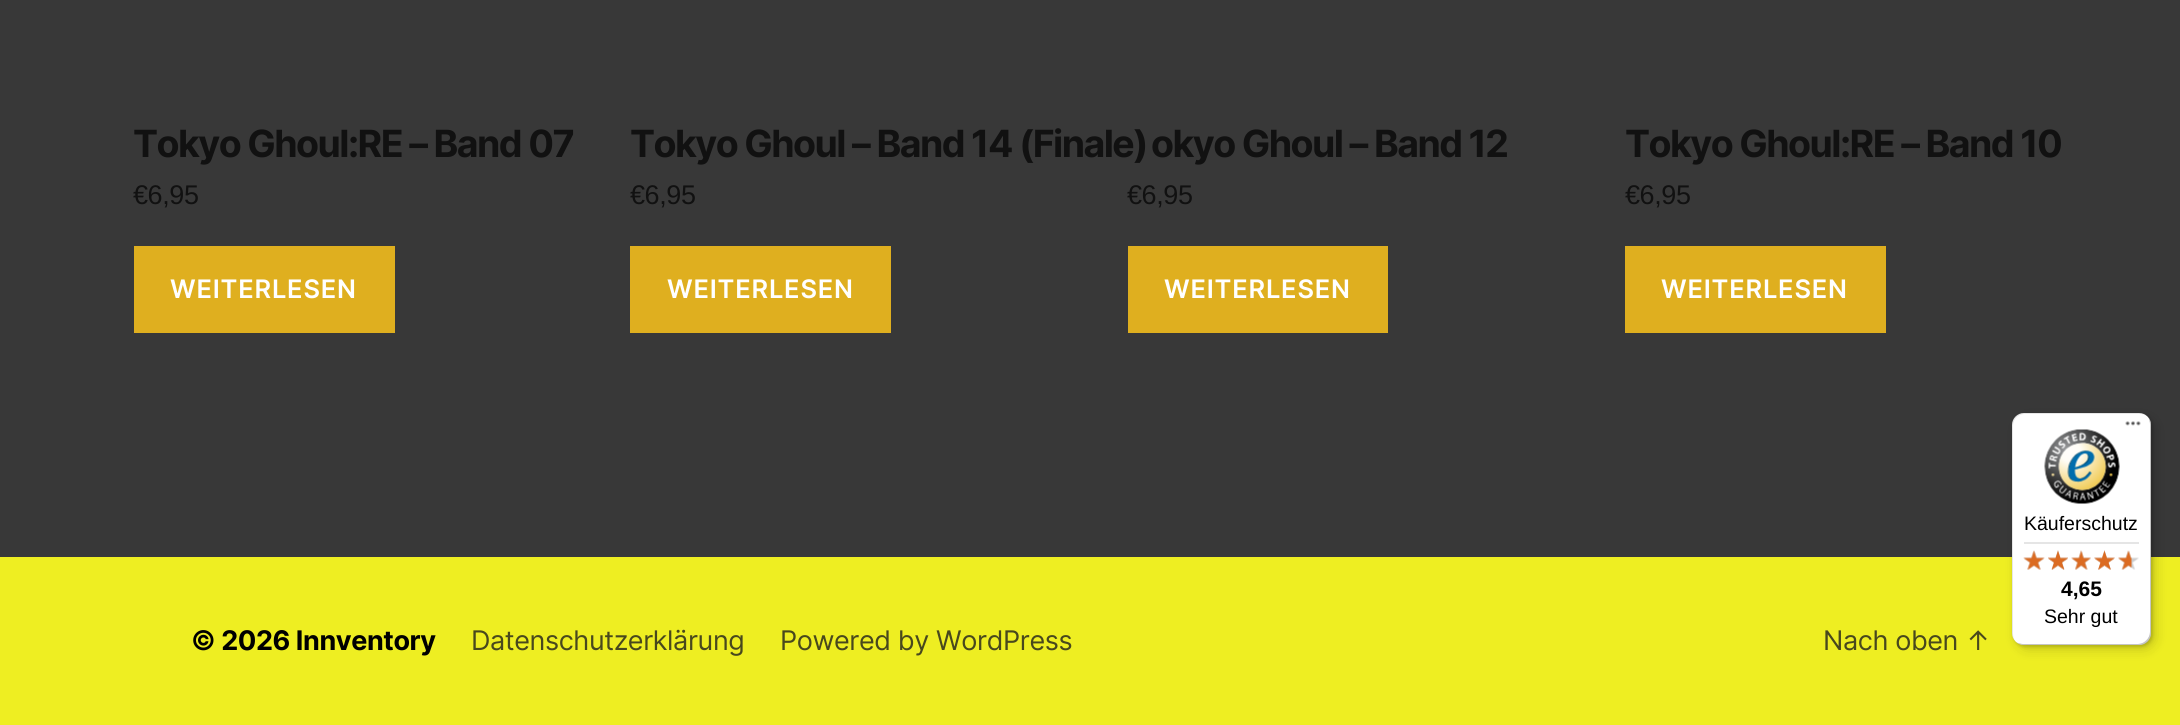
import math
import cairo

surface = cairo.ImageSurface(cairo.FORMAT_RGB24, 2180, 725)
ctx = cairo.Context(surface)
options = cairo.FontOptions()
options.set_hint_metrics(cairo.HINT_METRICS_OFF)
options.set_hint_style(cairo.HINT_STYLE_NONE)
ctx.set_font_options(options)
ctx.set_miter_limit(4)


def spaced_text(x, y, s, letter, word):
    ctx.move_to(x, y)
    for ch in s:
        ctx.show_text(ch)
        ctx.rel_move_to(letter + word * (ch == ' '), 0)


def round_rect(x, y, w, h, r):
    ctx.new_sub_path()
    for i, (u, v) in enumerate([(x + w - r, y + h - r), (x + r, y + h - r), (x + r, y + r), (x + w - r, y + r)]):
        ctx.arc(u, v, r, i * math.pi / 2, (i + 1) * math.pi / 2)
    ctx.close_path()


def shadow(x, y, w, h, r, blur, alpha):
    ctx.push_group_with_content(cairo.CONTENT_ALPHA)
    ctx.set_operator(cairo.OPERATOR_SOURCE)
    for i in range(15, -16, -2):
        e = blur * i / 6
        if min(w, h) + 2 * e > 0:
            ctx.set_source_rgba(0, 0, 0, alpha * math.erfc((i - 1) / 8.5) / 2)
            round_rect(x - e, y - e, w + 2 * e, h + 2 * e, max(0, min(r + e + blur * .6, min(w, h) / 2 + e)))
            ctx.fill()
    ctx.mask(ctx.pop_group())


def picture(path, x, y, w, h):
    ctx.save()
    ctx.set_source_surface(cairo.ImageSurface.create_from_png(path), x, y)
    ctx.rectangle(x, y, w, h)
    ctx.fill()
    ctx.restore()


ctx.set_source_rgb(0.22, 0.22, 0.22)
ctx.paint()
ctx.select_font_face("Inter", cairo.FONT_SLANT_NORMAL, cairo.FONT_WEIGHT_BOLD)
ctx.set_font_size(37.5)
ctx.set_source_rgb(0.067, 0.067, 0.067)
spaced_text(133, 157, "Tokyo Ghoul:RE – Band 07", -1.55, 0)
ctx.select_font_face("Liberation Sans")
ctx.set_font_size(27)
spaced_text(133, 204, "€6,95", -0.4, 0)
ctx.set_source_rgb(0.875, 0.686, 0.122)
ctx.rectangle(134, 246, 261, 87)
ctx.fill()
ctx.select_font_face("Inter SemiBold")
ctx.set_font_size(25.5)
ctx.set_source_rgb(1, 1, 1)
spaced_text(170, 298, "WEITERLESEN", 0.8, 0)
ctx.select_font_face("Inter", cairo.FONT_SLANT_NORMAL, cairo.FONT_WEIGHT_BOLD)
ctx.set_font_size(37.5)
ctx.set_source_rgb(0.067, 0.067, 0.067)
spaced_text(630, 157, "Tokyo Ghoul – Band 14 (Finale)", -1.55, 0)
ctx.select_font_face("Liberation Sans")
ctx.set_font_size(27)
spaced_text(630, 204, "€6,95", -0.4, 0)
ctx.set_source_rgb(0.875, 0.686, 0.122)
ctx.rectangle(630, 246, 261, 87)
ctx.fill()
ctx.select_font_face("Inter SemiBold")
ctx.set_font_size(25.5)
ctx.set_source_rgb(1, 1, 1)
spaced_text(667, 298, "WEITERLESEN", 0.8, 0)
ctx.select_font_face("Inter", cairo.FONT_SLANT_NORMAL, cairo.FONT_WEIGHT_BOLD)
ctx.set_font_size(37.5)
ctx.set_source_rgb(0.067, 0.067, 0.067)
spaced_text(1151, 157, "okyo Ghoul – Band 12", -1.55, 0)
ctx.select_font_face("Liberation Sans")
ctx.set_font_size(27)
spaced_text(1127, 204, "€6,95", -0.4, 0)
ctx.set_source_rgb(0.875, 0.686, 0.122)
ctx.rectangle(1128, 246, 260, 87)
ctx.fill()
ctx.select_font_face("Inter SemiBold")
ctx.set_font_size(25.5)
ctx.set_source_rgb(1, 1, 1)
spaced_text(1164, 298, "WEITERLESEN", 0.8, 0)
ctx.select_font_face("Inter", cairo.FONT_SLANT_NORMAL, cairo.FONT_WEIGHT_BOLD)
ctx.set_font_size(37.5)
ctx.set_source_rgb(0.067, 0.067, 0.067)
spaced_text(1625, 157, "Tokyo Ghoul:RE – Band 10", -1.55, 0)
ctx.select_font_face("Liberation Sans")
ctx.set_font_size(27)
spaced_text(1625, 204, "€6,95", -0.4, 0)
ctx.set_source_rgb(0.875, 0.686, 0.122)
ctx.rectangle(1625, 246, 261, 87)
ctx.fill()
ctx.select_font_face("Inter SemiBold")
ctx.set_font_size(25.5)
ctx.set_source_rgb(1, 1, 1)
spaced_text(1661, 298, "WEITERLESEN", 0.8, 0)
ctx.set_source_rgb(0.933, 0.933, 0.133)
ctx.rectangle(0, 557, 2180, 168)
ctx.fill()
ctx.set_source_rgb(0, 0, 0)
shadow(2016, 417, 140, 233, 12, 6, 0.15)
shadow(2013, 414, 140, 233, 12, 1.5, 0.15)
ctx.set_source_rgb(1, 1, 1)
round_rect(2012, 413, 139, 232, 12)
ctx.fill()
ctx.set_source_rgba(0, 0, 0, 0.1)
ctx.new_path()
ctx.move_to(2025, 414)
ctx.line_to(2140, 414)
ctx.curve_to(2143, 414, 2145, 415, 2147, 416)
ctx.curve_to(2145, 414, 2142, 413, 2139, 413)
ctx.line_to(2024, 413)
ctx.curve_to(2017, 413, 2012, 418, 2012, 425)
ctx.line_to(2012, 633)
ctx.curve_to(2012, 636, 2013, 639, 2015, 641)
ctx.curve_to(2014, 639, 2013, 637, 2013, 634)
ctx.line_to(2013, 426)
ctx.curve_to(2013, 419, 2018, 414, 2025, 414)
ctx.close_path()
ctx.fill()
ctx.set_source_rgba(0, 0, 0, 0.2)
ctx.new_path()
ctx.move_to(2018, 643)
ctx.curve_to(2019, 644, 2022, 645, 2024, 645)
ctx.line_to(2139, 645)
ctx.curve_to(2146, 645, 2151, 640, 2151, 633)
ctx.line_to(2151, 425)
ctx.curve_to(2151, 423, 2150, 420, 2149, 419)
ctx.line_to(2150, 423)
ctx.line_to(2150, 632)
ctx.curve_to(2150, 638, 2144, 644, 2138, 644)
ctx.line_to(2022, 644)
ctx.close_path()
ctx.fill()
ctx.set_source_rgba(0.196, 0.196, 0.196, 0.2)
ctx.new_path()
ctx.move_to(2016, 642)
ctx.curve_to(2018, 644, 2021, 645, 2024, 645)
ctx.line_to(2139, 645)
ctx.curve_to(2146, 645, 2151, 640, 2151, 633)
ctx.line_to(2151, 425)
ctx.curve_to(2151, 422, 2150, 419, 2148, 417)
ctx.curve_to(2149, 419, 2150, 421, 2150, 424)
ctx.line_to(2150, 632)
ctx.curve_to(2150, 639, 2145, 644, 2138, 644)
ctx.line_to(2023, 644)
ctx.curve_to(2020, 644, 2018, 643, 2016, 642)
ctx.close_path()
ctx.fill()
ctx.set_source_rgba(1, 1, 1, 0.3)
ctx.new_path()
ctx.move_to(2016, 642)
ctx.curve_to(2018, 644, 2021, 645, 2024, 645)
ctx.line_to(2139, 645)
ctx.curve_to(2146, 645, 2151, 640, 2151, 633)
ctx.line_to(2151, 425)
ctx.curve_to(2151, 422, 2150, 419, 2148, 417)
ctx.curve_to(2149, 419, 2150, 421, 2150, 424)
ctx.line_to(2150, 632)
ctx.curve_to(2150, 639, 2145, 644, 2138, 644)
ctx.line_to(2023, 644)
ctx.curve_to(2020, 644, 2018, 643, 2016, 642)
ctx.close_path()
ctx.fill()
picture("img1.png", 2125, 421, 16, 5)
picture("img2.png", 2044, 429, 76, 75)
ctx.select_font_face("Liberation Sans")
ctx.set_font_size(19.5)
ctx.set_source_rgb(0, 0, 0)
ctx.move_to(2024, 530)
ctx.show_text("Käuferschutz")
ctx.set_source_rgb(0.898, 0.898, 0.898)
ctx.rectangle(2024, 542, 115, 2)
ctx.fill()
picture("img8.png", 2024, 551, 20, 19)
picture("img3.png", 2023, 550, 22, 20)
picture("img9.png", 2048, 550, 20, 20)
picture("img4.png", 2048, 550, 20, 20)
picture("img10.png", 2071, 550, 20, 20)
picture("img5.png", 2071, 550, 20, 20)
picture("img11.png", 2094, 550, 21, 20)
picture("img6.png", 2094, 550, 21, 20)
picture("img12.png", 2118, 551, 21, 19)
picture("img7.png", 2118, 550, 14, 20)
ctx.select_font_face("Liberation Sans", cairo.FONT_SLANT_NORMAL, cairo.FONT_WEIGHT_BOLD)
ctx.set_font_size(21)
ctx.set_source_rgb(0, 0, 0)
ctx.move_to(2061, 596)
ctx.show_text("4,65")
ctx.select_font_face("Liberation Sans")
ctx.set_font_size(19.5)
ctx.move_to(2044, 623)
ctx.show_text("Sehr gut")
ctx.select_font_face("Inter", cairo.FONT_SLANT_NORMAL, cairo.FONT_WEIGHT_BOLD)
ctx.set_font_size(27)
spaced_text(191, 650, "© 2026 Innventory", -0.4, 0)
ctx.select_font_face("Inter")
ctx.set_source_rgb(0.282, 0.282, 0.114)
spaced_text(471, 650, "Datenschutzerklärung", -0.4, 0)
spaced_text(780, 650, "Powered by WordPress", -0.4, 0)
spaced_text(1823, 650, "Nach oben ↑", -0.4, 0)
surface.write_to_png("page.png")
